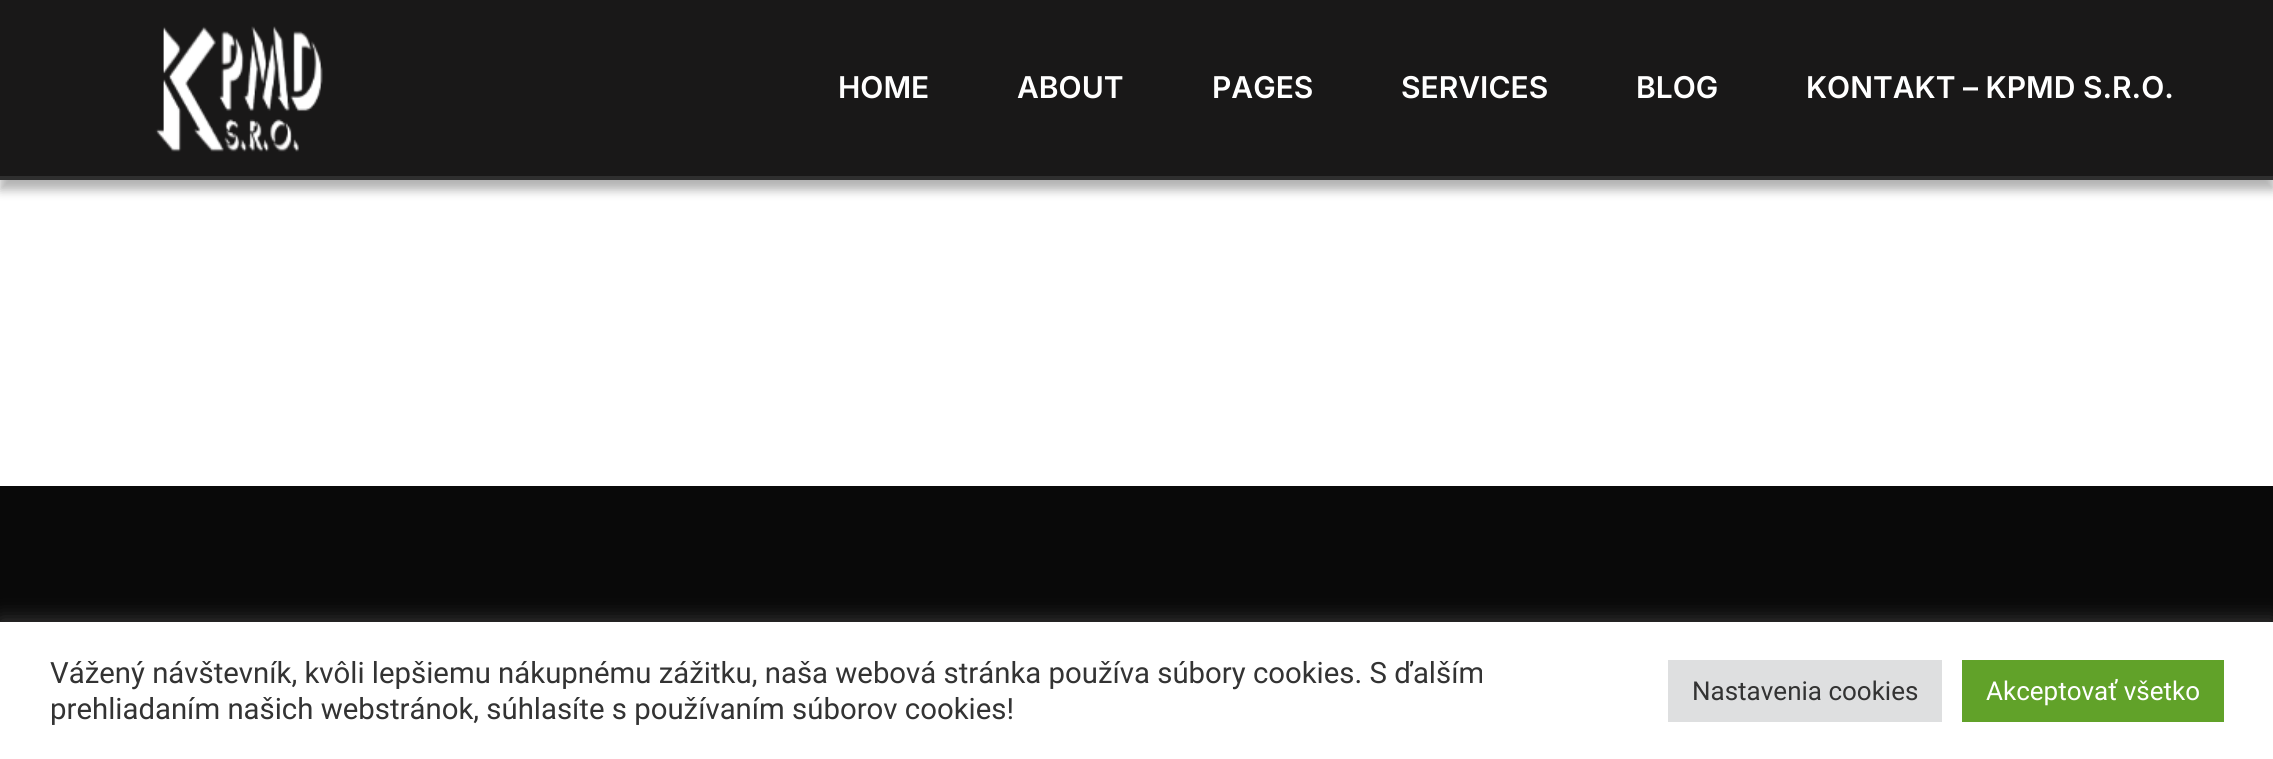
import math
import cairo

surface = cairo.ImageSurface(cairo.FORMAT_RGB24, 2273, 759)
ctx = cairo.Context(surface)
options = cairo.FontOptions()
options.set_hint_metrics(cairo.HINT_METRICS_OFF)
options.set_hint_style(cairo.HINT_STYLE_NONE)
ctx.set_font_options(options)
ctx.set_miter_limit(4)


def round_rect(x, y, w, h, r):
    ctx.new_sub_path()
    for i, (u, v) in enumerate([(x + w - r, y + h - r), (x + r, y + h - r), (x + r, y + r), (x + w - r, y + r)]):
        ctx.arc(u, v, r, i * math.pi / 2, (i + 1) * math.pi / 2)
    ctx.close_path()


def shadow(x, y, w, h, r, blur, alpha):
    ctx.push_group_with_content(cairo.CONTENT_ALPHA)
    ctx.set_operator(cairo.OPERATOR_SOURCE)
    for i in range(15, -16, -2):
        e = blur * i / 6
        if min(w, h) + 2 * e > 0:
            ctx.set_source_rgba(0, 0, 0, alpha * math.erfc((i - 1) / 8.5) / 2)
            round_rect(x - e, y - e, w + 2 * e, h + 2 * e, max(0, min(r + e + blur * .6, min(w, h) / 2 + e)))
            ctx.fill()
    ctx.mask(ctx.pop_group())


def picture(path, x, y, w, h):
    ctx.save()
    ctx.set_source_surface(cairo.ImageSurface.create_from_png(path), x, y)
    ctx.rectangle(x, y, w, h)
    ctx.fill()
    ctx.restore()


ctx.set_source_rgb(1, 1, 1)
ctx.paint()
ctx.set_source_rgb(0, 0, 0)
shadow(0, 10, 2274, 180, 0, 5, 0.3)
ctx.set_source_rgb(0.098, 0.094, 0.094)
ctx.rectangle(0, 0, 2273, 176)
ctx.fill()
ctx.set_source_rgb(0.184, 0.184, 0.184)
ctx.rectangle(0, 176, 2273, 4)
ctx.fill()
picture("img1.png", 155, 26, 168, 126)
ctx.select_font_face("Inter SemiBold")
ctx.set_font_size(30)
ctx.set_source_rgb(1, 1, 1)
ctx.move_to(838, 98)
ctx.show_text("HOME")
ctx.move_to(1017, 98)
ctx.show_text("ABOUT")
ctx.move_to(1212, 98)
ctx.show_text("PAGES")
ctx.move_to(1401, 98)
ctx.show_text("SERVICES")
ctx.move_to(1636, 98)
ctx.show_text("BLOG")
ctx.move_to(1806, 98)
ctx.show_text("KONTAKT – KPMD S.R.O.")
ctx.set_source_rgb(0.039, 0.039, 0.039)
ctx.rectangle(0, 486, 2273, 136)
ctx.fill()
ctx.set_source_rgb(0.675, 0.671, 0.671)
shadow(0, 620, 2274, 138, 0, 10, 0.3)
ctx.set_source_rgb(1, 1, 1)
ctx.rectangle(0, 622, 2273, 137)
ctx.fill()
ctx.select_font_face("Roboto")
ctx.set_font_size(29.35)
ctx.set_source_rgb(0.2, 0.2, 0.2)
ctx.move_to(50, 683)
ctx.show_text("Vážený návštevník, kvôli lepšiemu nákupnému zážitku, naša webová stránka používa súbory cookies. S ďalším")
ctx.move_to(50, 719)
ctx.show_text("prehliadaním našich webstránok, súhlasíte s používaním súborov cookies!")
ctx.set_source_rgb(0.871, 0.875, 0.878)
ctx.rectangle(1668, 660, 274, 62)
ctx.fill()
ctx.set_font_size(26)
ctx.set_source_rgb(0.2, 0.2, 0.2)
ctx.move_to(1692, 700)
ctx.show_text("Nastavenia cookies")
ctx.set_source_rgb(0.38, 0.635, 0.161)
ctx.rectangle(1962, 660, 262, 62)
ctx.fill()
ctx.set_source_rgb(1, 1, 1)
ctx.move_to(1986, 700)
ctx.show_text("Akceptovať všetko")
surface.write_to_png("page.png")
